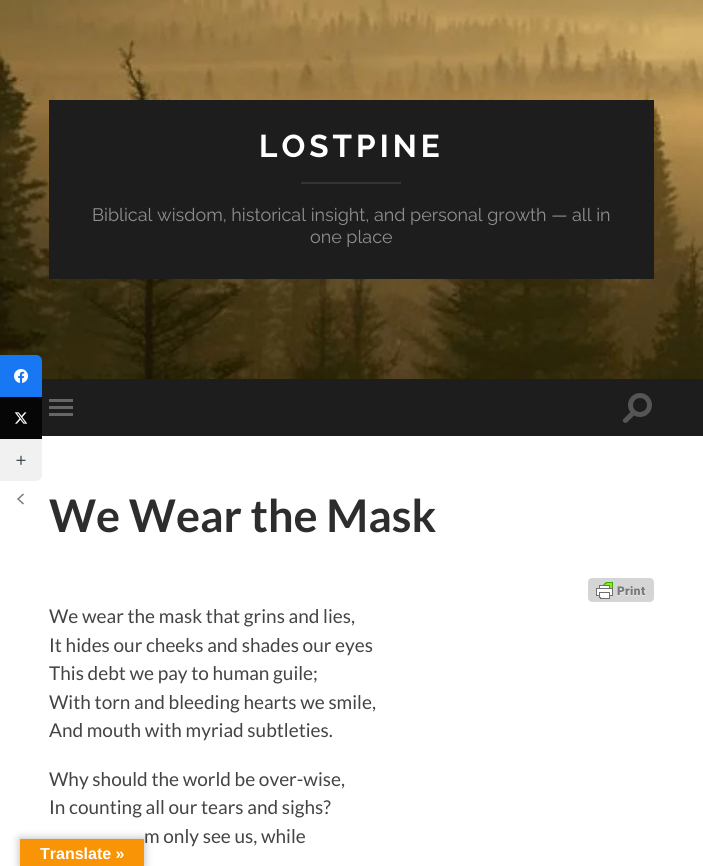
import math
import cairo

surface = cairo.ImageSurface(cairo.FORMAT_RGB24, 703, 866)
ctx = cairo.Context(surface)
options = cairo.FontOptions()
options.set_hint_metrics(cairo.HINT_METRICS_OFF)
options.set_hint_style(cairo.HINT_STYLE_NONE)
ctx.set_font_options(options)
ctx.set_miter_limit(4)


def spaced_text(x, y, s, letter, word):
    ctx.move_to(x, y)
    for ch in s:
        ctx.show_text(ch)
        ctx.rel_move_to(letter + word * (ch == ' '), 0)


def round_rect(x, y, w, h, r):
    ctx.new_sub_path()
    for i, (u, v) in enumerate([(x + w - r, y + h - r), (x + r, y + h - r), (x + r, y + r), (x + w - r, y + r)]):
        ctx.arc(u, v, r, i * math.pi / 2, (i + 1) * math.pi / 2)
    ctx.close_path()


def shadow(x, y, w, h, r, blur, alpha):
    ctx.push_group_with_content(cairo.CONTENT_ALPHA)
    ctx.set_operator(cairo.OPERATOR_SOURCE)
    for i in range(15, -16, -2):
        e = blur * i / 6
        if min(w, h) + 2 * e > 0:
            ctx.set_source_rgba(0, 0, 0, alpha * math.erfc((i - 1) / 8.5) / 2)
            round_rect(x - e, y - e, w + 2 * e, h + 2 * e, max(0, min(r + e + blur * .6, min(w, h) / 2 + e)))
            ctx.fill()
    ctx.mask(ctx.pop_group())


def picture(path, x, y, w, h):
    ctx.save()
    ctx.set_source_surface(cairo.ImageSurface.create_from_png(path), x, y)
    ctx.rectangle(x, y, w, h)
    ctx.fill()
    ctx.restore()


ctx.set_source_rgb(1, 1, 1)
ctx.paint()
picture("img4.png", 0, 0, 703, 379)
ctx.set_source_rgb(0.094, 0.467, 0.949)
ctx.new_path()
ctx.move_to(0, 355)
ctx.line_to(36, 355)
ctx.curve_to(39.5, 355, 42, 357.5, 42, 361)
ctx.line_to(42, 397)
ctx.line_to(0, 397)
ctx.close_path()
ctx.fill()
picture("img1.png", 14, 369, 14, 14)
ctx.set_source_rgb(0.024, 0.024, 0.024)
ctx.rectangle(0, 397, 42, 42)
ctx.fill()
picture("img2.png", 14, 412, 14, 12)
ctx.set_source_rgb(0.945, 0.945, 0.945)
ctx.new_path()
ctx.move_to(0, 439)
ctx.line_to(42, 439)
ctx.line_to(42, 475)
ctx.curve_to(42, 478.5, 39.5, 481, 36, 481)
ctx.line_to(0, 481)
ctx.close_path()
ctx.fill()
picture("img3.png", 16, 455, 10, 10)
ctx.new_path()
ctx.move_to(23.5, 494)
ctx.line_to(18, 499)
ctx.line_to(23.5, 504)
ctx.set_source_rgb(0.482, 0.482, 0.482)
ctx.set_line_width(1.5)
ctx.stroke()
ctx.set_source_rgb(0.114, 0.114, 0.114)
ctx.rectangle(49, 100, 605, 179)
ctx.fill()
ctx.select_font_face("Raleway Thin")
ctx.set_font_size(31.5)
ctx.set_source_rgb(1, 1, 1)
spaced_text(259, 157, "LOSTPINE", 4, 0)
ctx.set_source_rgb(0.204, 0.204, 0.204)
ctx.rectangle(301, 182, 100, 2)
ctx.fill()
ctx.select_font_face("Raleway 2 Thin")
ctx.set_font_size(18)
ctx.set_source_rgb(0.557, 0.557, 0.557)
ctx.move_to(92, 221)
ctx.show_text("Biblical wisdom, historical insight, and personal growth — all in")
ctx.move_to(310, 243)
ctx.show_text("one place")
ctx.set_source_rgb(0.114, 0.114, 0.114)
ctx.rectangle(42, 379, 661, 57)
ctx.fill()
ctx.set_source_rgb(0.4, 0.4, 0.4)
ctx.rectangle(49, 399, 24, 3)
ctx.fill()
ctx.rectangle(49, 406, 24, 3)
ctx.fill()
ctx.rectangle(49, 413, 24, 3)
ctx.fill()
ctx.set_source_rgb(0.333, 0.333, 0.333)
ctx.arc(640, 405, 12, 0, 2 * math.pi)
ctx.fill()
ctx.set_source_rgb(0.114, 0.114, 0.114)
ctx.arc(640, 405, 7, 0, 2 * math.pi)
ctx.fill()
ctx.set_source_rgb(0.333, 0.333, 0.333)
ctx.new_path()
ctx.move_to(623.5, 419)
ctx.line_to(632, 410.5)
ctx.line_to(635.5, 414)
ctx.line_to(630, 419.5)
ctx.curve_to(628, 421.5, 625.5, 425, 623, 421.5)
ctx.curve_to(622.5, 420.5, 623, 419.5, 623.5, 419)
ctx.close_path()
ctx.fill()
ctx.select_font_face("Lato", cairo.FONT_SLANT_NORMAL, cairo.FONT_WEIGHT_BOLD)
ctx.set_font_size(45)
ctx.set_source_rgb(0.176, 0.176, 0.176)
ctx.move_to(49, 532)
ctx.show_text("We Wear the Mask")
picture("img5.png", 588, 578, 66, 24)
ctx.select_font_face("Lato")
ctx.set_font_size(19)
ctx.set_source_rgb(0.267, 0.267, 0.267)
ctx.move_to(49, 623)
ctx.show_text("We wear the mask that grins and lies,")
ctx.move_to(49, 652)
ctx.show_text("It hides our cheeks and shades our eyes")
ctx.move_to(49, 680)
ctx.show_text("This debt we pay to human guile;")
ctx.move_to(49, 709)
ctx.show_text("With torn and bleeding hearts we smile,")
ctx.move_to(49, 737)
ctx.show_text("And mouth with myriad subtleties.")
ctx.move_to(49, 786)
ctx.show_text("Why should the world be over-wise,")
ctx.move_to(49, 814)
ctx.show_text("In counting all our tears and sighs?")
ctx.move_to(144, 843)
ctx.show_text("m only see us, while")
ctx.set_source_rgb(0, 0, 0)
shadow(20, 839, 124, 27, 0, 4.5, 0.3)
ctx.set_source_rgb(0.973, 0.58, 0.024)
ctx.rectangle(20, 839, 124, 27)
ctx.fill()
ctx.select_font_face("Liberation Sans", cairo.FONT_SLANT_NORMAL, cairo.FONT_WEIGHT_BOLD)
ctx.set_font_size(16)
ctx.set_source_rgb(1, 1, 1)
ctx.move_to(40, 859)
ctx.show_text("Translate »")
surface.write_to_png("page.png")
